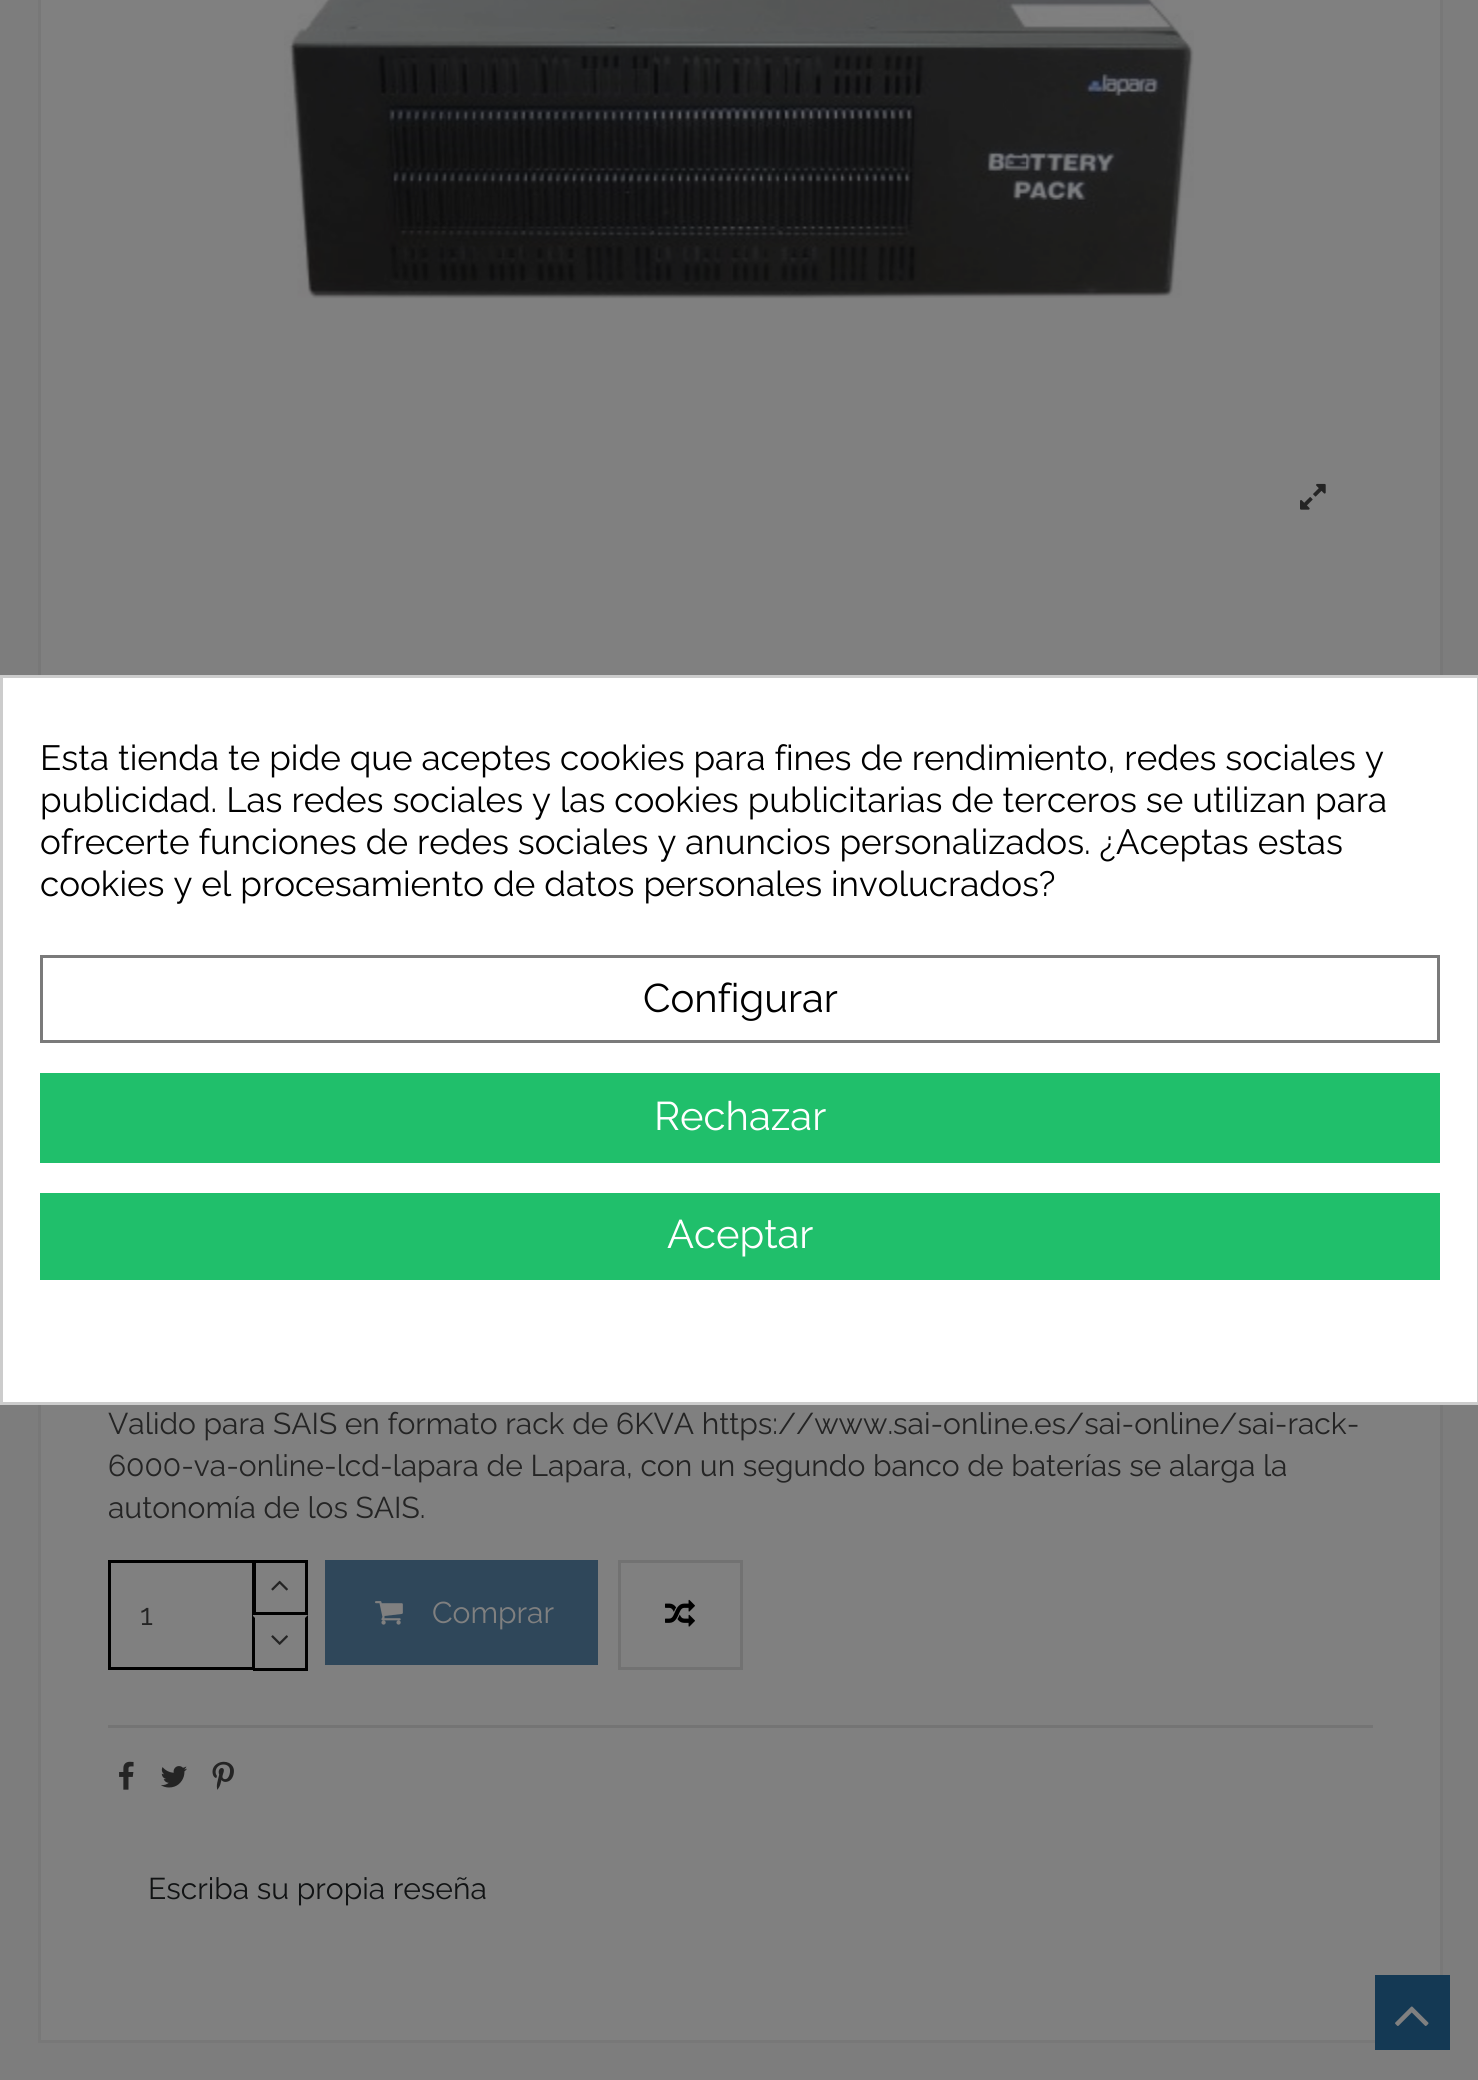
import math
import cairo

surface = cairo.ImageSurface(cairo.FORMAT_RGB24, 1478, 2080)
ctx = cairo.Context(surface)
options = cairo.FontOptions()
options.set_hint_metrics(cairo.HINT_METRICS_OFF)
options.set_hint_style(cairo.HINT_STYLE_NONE)
ctx.set_font_options(options)
ctx.set_miter_limit(4)


def picture(path, x, y, w, h):
    ctx.save()
    ctx.set_source_surface(cairo.ImageSurface.create_from_png(path), x, y)
    ctx.rectangle(x, y, w, h)
    ctx.fill()
    ctx.restore()


ctx.set_source_rgb(0.49, 0.49, 0.49)
ctx.paint()
ctx.set_source_rgb(0.502, 0.502, 0.502)
ctx.rectangle(39.5, -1.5, 1402, 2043)
ctx.fill_preserve()
ctx.set_source_rgb(0.471, 0.471, 0.471)
ctx.set_line_width(3)
ctx.stroke()
ctx.set_source_rgb(1, 1, 1)
ctx.rectangle(1.5, 676.5, 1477, 727)
ctx.fill_preserve()
ctx.set_source_rgb(0.8, 0.8, 0.8)
ctx.stroke()
ctx.select_font_face("Raleway")
ctx.set_font_size(35)
ctx.set_source_rgb(0, 0, 0)
ctx.move_to(40, 770)
ctx.show_text("Esta tienda te pide que aceptes cookies para fines de rendimiento, redes sociales y")
ctx.move_to(40, 812)
ctx.show_text("publicidad. Las redes sociales y las cookies publicitarias de terceros se utilizan para")
ctx.move_to(40, 854)
ctx.show_text("ofrecerte funciones de redes sociales y anuncios personalizados. ¿Aceptas estas")
ctx.move_to(40, 896)
ctx.show_text("cookies y el procesamiento de datos personales involucrados?")
ctx.rectangle(41.5, 956.5, 1397, 85)
ctx.set_source_rgb(0.478, 0.478, 0.478)
ctx.stroke()
ctx.set_font_size(40)
ctx.set_source_rgb(0, 0, 0)
ctx.move_to(643, 1012)
ctx.show_text("Configurar")
ctx.set_source_rgb(0.125, 0.749, 0.42)
ctx.rectangle(40, 1073, 1400, 90)
ctx.fill()
ctx.set_source_rgb(1, 1, 1)
ctx.move_to(654, 1130)
ctx.show_text("Rechazar")
ctx.set_source_rgb(0.125, 0.749, 0.42)
ctx.rectangle(40, 1193, 1400, 87)
ctx.fill()
ctx.set_source_rgb(1, 1, 1)
ctx.move_to(667, 1248)
ctx.show_text("Aceptar")
picture("img1.png", 284, 0, 910, 299)
picture("img2.png", 1300, 483, 26, 27)
ctx.set_font_size(30)
ctx.set_source_rgb(0.141, 0.141, 0.141)
ctx.move_to(108, 1434)
ctx.show_text("Valido para SAIS en formato rack de 6KVA https://www.sai-online.es/sai-online/sai-rack-")
ctx.move_to(108, 1476)
ctx.show_text("6000-va-online-lcd-lapara de Lapara, con un segundo banco de baterías se alarga la")
ctx.move_to(108, 1518)
ctx.show_text("autonomía de los SAIS.")
ctx.rectangle(109.5, 1561.5, 144, 107)
ctx.set_source_rgb(0, 0, 0)
ctx.stroke()
ctx.set_source_rgb(0.141, 0.141, 0.141)
ctx.move_to(140, 1625)
ctx.show_text("1")
ctx.rectangle(254.5, 1561.5, 52, 52)
ctx.set_source_rgb(0, 0, 0)
ctx.stroke()
picture("img3.png", 271, 1580, 17, 11)
ctx.set_source_rgb(0.502, 0.502, 0.502)
ctx.rectangle(253, 1615, 2, 53)
ctx.fill()
ctx.set_source_rgb(0, 0, 0)
ctx.new_path()
ctx.move_to(308, 1615)
ctx.line_to(308, 1670)
ctx.line_to(305, 1668)
ctx.line_to(305, 1618)
ctx.close_path()
ctx.fill()
ctx.rectangle(253, 1668, 55, 3)
ctx.fill()
ctx.new_path()
ctx.move_to(252, 1670)
ctx.line_to(252, 1615)
ctx.line_to(255, 1618)
ctx.line_to(255, 1668)
ctx.close_path()
ctx.fill()
picture("img4.png", 271, 1635, 17, 10)
ctx.set_source_rgb(0.184, 0.278, 0.353)
ctx.rectangle(325, 1560, 273, 105)
ctx.fill()
picture("img5.png", 375, 1601, 28, 24)
ctx.set_source_rgb(0.502, 0.502, 0.502)
ctx.move_to(432, 1623)
ctx.show_text("Comprar")
ctx.rectangle(619.5, 1561.5, 122, 107)
ctx.set_source_rgb(0.447, 0.447, 0.447)
ctx.stroke()
picture("img6.png", 665, 1599, 30, 28)
ctx.set_source_rgb(0.455, 0.455, 0.455)
ctx.rectangle(108, 1725, 1265, 3)
ctx.fill()
picture("img7.png", 119, 1761, 15, 29)
picture("img8.png", 161, 1766, 26, 22)
picture("img9.png", 212, 1761, 22, 29)
ctx.set_source_rgb(0.067, 0.075, 0.082)
ctx.move_to(148, 1899)
ctx.show_text("Escriba su propia reseña")
ctx.set_source_rgb(0.082, 0.224, 0.329)
ctx.rectangle(1375, 1975, 75, 75)
ctx.fill()
picture("img10.png", 1395, 2006, 34, 20)
surface.write_to_png("page.png")
